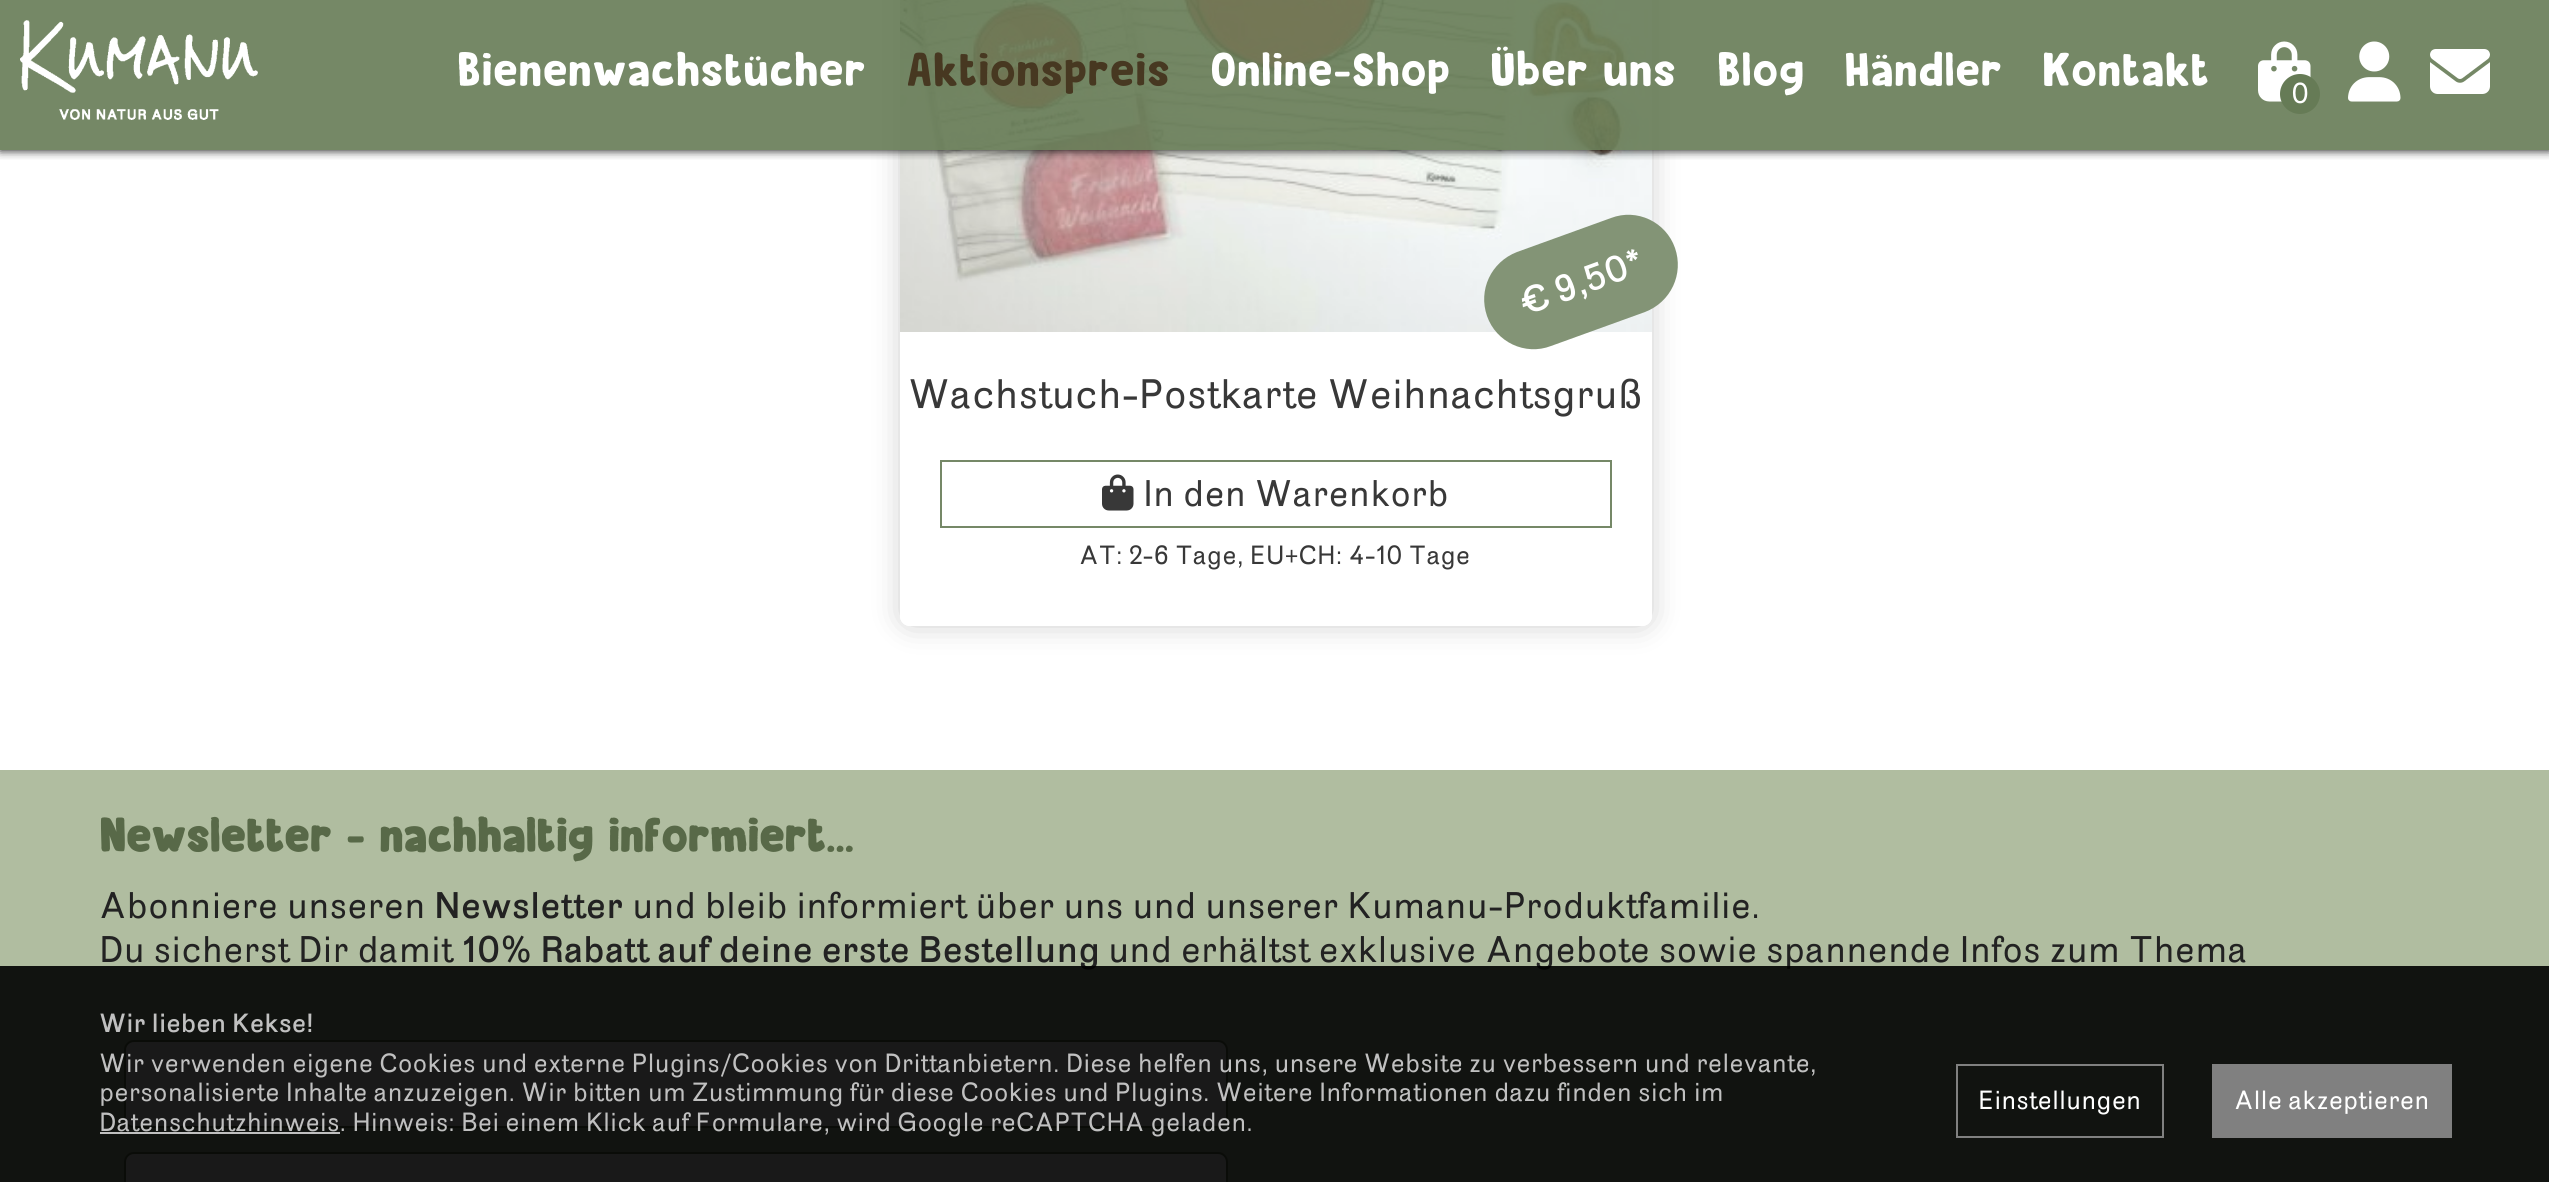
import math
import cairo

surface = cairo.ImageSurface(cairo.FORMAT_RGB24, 2549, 1182)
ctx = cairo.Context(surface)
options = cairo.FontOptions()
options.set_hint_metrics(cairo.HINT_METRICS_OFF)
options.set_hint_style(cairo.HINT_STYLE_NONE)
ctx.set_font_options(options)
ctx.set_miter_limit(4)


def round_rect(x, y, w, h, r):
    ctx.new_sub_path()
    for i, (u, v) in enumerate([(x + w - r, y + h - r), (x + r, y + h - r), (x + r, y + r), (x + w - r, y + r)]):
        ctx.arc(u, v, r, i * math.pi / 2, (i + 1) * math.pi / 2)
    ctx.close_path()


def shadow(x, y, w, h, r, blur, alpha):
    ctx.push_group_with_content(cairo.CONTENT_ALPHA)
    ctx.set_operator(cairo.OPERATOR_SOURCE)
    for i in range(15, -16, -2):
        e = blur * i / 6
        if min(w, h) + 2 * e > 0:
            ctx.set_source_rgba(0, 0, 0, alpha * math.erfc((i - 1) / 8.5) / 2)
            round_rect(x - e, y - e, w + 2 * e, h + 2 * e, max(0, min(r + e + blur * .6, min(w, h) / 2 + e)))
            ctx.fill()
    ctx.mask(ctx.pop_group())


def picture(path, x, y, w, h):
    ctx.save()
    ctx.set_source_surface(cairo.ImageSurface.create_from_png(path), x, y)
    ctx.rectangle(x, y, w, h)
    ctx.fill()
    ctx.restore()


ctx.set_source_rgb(1, 1, 1)
ctx.paint()
ctx.save()
ctx.set_fill_rule(cairo.FILL_RULE_EVEN_ODD)
ctx.new_path()
ctx.move_to(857, 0)
ctx.line_to(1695, 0)
ctx.line_to(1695, 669)
ctx.line_to(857, 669)
ctx.close_path()
ctx.move_to(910, -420)
ctx.line_to(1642, -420)
ctx.curve_to(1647.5, -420, 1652, -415.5, 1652, -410)
ctx.line_to(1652, 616)
ctx.curve_to(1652, 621.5, 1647.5, 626, 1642, 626)
ctx.line_to(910, 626)
ctx.curve_to(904.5, 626, 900, 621.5, 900, 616)
ctx.line_to(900, -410)
ctx.curve_to(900, -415.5, 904.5, -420, 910, -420)
ctx.close_path()
ctx.clip()
ctx.set_source_rgb(0.102, 0.102, 0.102)
shadow(906, -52, 740, 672, 4, 16, 0.3)
ctx.restore()
ctx.set_source_rgba(1, 1, 1, 0.9)
round_rect(900, -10, 752, 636, 10)
ctx.fill()
picture("img5.png", 900, 0, 752, 332)
ctx.save()
ctx.rectangle(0, 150, 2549, 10)
ctx.clip()
ctx.set_source_rgb(0, 0, 0)
shadow(0, 0, 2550, 150, 0, 5, 1)
ctx.restore()
ctx.set_source_rgba(0.4, 0.482, 0.337, 0.9)
ctx.rectangle(0, 0, 2549, 150)
ctx.fill()
picture("img1.png", 20, 20, 238, 100)
ctx.select_font_face("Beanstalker")
ctx.set_font_size(48)
ctx.set_source_rgb(1, 1, 1)
ctx.move_to(457, 86)
ctx.show_text("Bienenwachstücher")
ctx.set_source_rgb(0.278, 0.22, 0.129)
ctx.move_to(906, 86)
ctx.show_text("Aktionspreis")
ctx.set_source_rgb(1, 1, 1)
ctx.move_to(1210, 86)
ctx.show_text("Online-Shop")
ctx.move_to(1490, 86)
ctx.show_text("Über uns")
ctx.move_to(1717, 86)
ctx.show_text("Blog")
ctx.move_to(1844, 86)
ctx.show_text("Händler")
ctx.move_to(2042, 86)
ctx.show_text("Kontakt")
picture("img2.png", 2258, 41, 53, 61)
ctx.set_source_rgb(0.4, 0.482, 0.337)
ctx.arc(2300, 94, 20, 0, 2 * math.pi)
ctx.fill()
ctx.select_font_face("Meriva")
ctx.set_font_size(28)
ctx.set_source_rgb(1, 1, 1)
ctx.move_to(2291, 103)
ctx.show_text("0")
picture("img3.png", 2348, 41, 53, 61)
picture("img4.png", 2430, 49, 60, 45)
ctx.set_source_rgb(0.514, 0.58, 0.463)
ctx.new_path()
ctx.move_to(1517, 252)
ctx.line_to(1611, 218)
ctx.curve_to(1637, 208, 1666, 222, 1675, 248)
ctx.curve_to(1684, 274, 1671, 302, 1645, 312)
ctx.line_to(1551, 346)
ctx.curve_to(1525, 356, 1496, 342, 1487, 316)
ctx.curve_to(1478, 290, 1491, 262, 1517, 252)
ctx.close_path()
ctx.fill()
ctx.select_font_face("Meriva Medium")
ctx.set_font_size(36)
ctx.set_source_rgb(1, 1, 1)
ctx.save()
ctx.translate(1524, 316)
ctx.rotate(-20 * math.pi / 180)
ctx.move_to(0, 0)
ctx.show_text("€ 9,50*")
ctx.restore()
ctx.select_font_face("Meriva")
ctx.set_font_size(40)
ctx.set_source_rgb(0.22, 0.22, 0.22)
ctx.move_to(908, 408)
ctx.show_text("Wachstuch-Postkarte Weihnachtsgruß")
ctx.rectangle(941, 461, 670, 66)
ctx.set_source_rgb(0.459, 0.533, 0.404)
ctx.stroke()
picture("img6.png", 1102, 474, 32, 37)
ctx.set_font_size(36)
ctx.set_source_rgb(0.22, 0.22, 0.22)
ctx.move_to(1143, 506)
ctx.show_text("In den Warenkorb")
ctx.set_font_size(25.6)
ctx.move_to(1079, 564)
ctx.show_text("AT: 2-6 Tage, EU+CH: 4-10 Tage")
ctx.set_source_rgb(0.69, 0.741, 0.627)
ctx.rectangle(0, 770, 2549, 412)
ctx.fill()
ctx.select_font_face("Beanstalker", cairo.FONT_SLANT_NORMAL, cairo.FONT_WEIGHT_BOLD)
ctx.set_font_size(48)
ctx.set_source_rgb(0.345, 0.412, 0.282)
ctx.move_to(99, 852)
ctx.show_text("Newsletter - nachhaltig informiert...")
ctx.select_font_face("Meriva")
ctx.set_font_size(36)
ctx.set_source_rgb(0.133, 0.133, 0.133)
ctx.move_to(99, 918)
ctx.show_text("Abonniere unseren")
ctx.select_font_face("Meriva Medium")
ctx.move_to(434, 918)
ctx.show_text("Newsletter")
ctx.select_font_face("Meriva")
ctx.move_to(632, 918)
ctx.show_text("und bleib informiert über uns und unserer Kumanu-Produktfamilie.")
ctx.move_to(99, 962)
ctx.show_text("Du sicherst Dir damit")
ctx.select_font_face("Meriva Medium")
ctx.move_to(462, 962)
ctx.show_text("10% Rabatt auf deine erste Bestellung")
ctx.select_font_face("Meriva")
ctx.move_to(1108, 962)
ctx.show_text("und erhältst exklusive Angebote sowie spannende Infos zum Thema")
ctx.set_source_rgb(1, 1, 1)
round_rect(125, 1041, 1102, 86, 9)
ctx.fill_preserve()
ctx.set_source_rgb(0.4, 0.482, 0.337)
ctx.stroke()
ctx.set_source_rgb(1, 1, 1)
round_rect(125, 1153, 1102, 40, 9)
ctx.fill_preserve()
ctx.set_source_rgb(0.4, 0.482, 0.337)
ctx.stroke()
ctx.set_source_rgba(0, 0, 0, 0.9)
ctx.rectangle(0, 966, 2549, 216)
ctx.fill()
ctx.select_font_face("Meriva Medium")
ctx.set_font_size(25.6)
ctx.set_source_rgb(0.753, 0.753, 0.753)
ctx.move_to(99, 1032)
ctx.show_text("Wir lieben Kekse!")
ctx.select_font_face("Meriva")
ctx.move_to(99, 1072)
ctx.show_text("Wir verwenden eigene Cookies und externe Plugins/Cookies von Drittanbietern. Diese helfen uns, unsere Website zu verbessern und relevante,")
ctx.move_to(99, 1101)
ctx.show_text("personalisierte Inhalte anzuzeigen. Wir bitten um Zustimmung für diese Cookies und Plugins. Weitere Informationen dazu finden sich im")
ctx.rectangle(100, 1132, 240, 2)
ctx.fill()
ctx.move_to(99, 1131)
ctx.show_text("Datenschutzhinweis. Hinweis: Bei einem Klick auf Formulare, wird Google reCAPTCHA geladen.")
ctx.rectangle(1957, 1065, 206, 72)
ctx.set_source_rgb(0.502, 0.502, 0.502)
ctx.stroke()
ctx.set_source_rgb(1, 1, 1)
ctx.move_to(1978, 1109)
ctx.show_text("Einstellungen")
ctx.set_source_rgb(0.502, 0.502, 0.502)
ctx.rectangle(2212, 1064, 240, 74)
ctx.fill()
ctx.set_source_rgb(1, 1, 1)
ctx.move_to(2234, 1109)
ctx.show_text("Alle akzeptieren")
surface.write_to_png("page.png")
